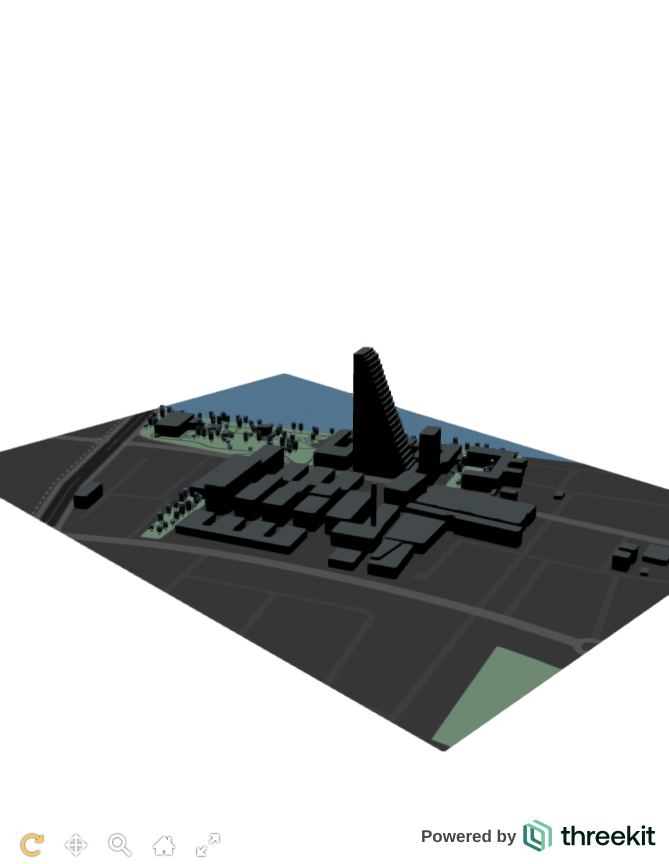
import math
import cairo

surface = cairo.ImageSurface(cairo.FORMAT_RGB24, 669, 864)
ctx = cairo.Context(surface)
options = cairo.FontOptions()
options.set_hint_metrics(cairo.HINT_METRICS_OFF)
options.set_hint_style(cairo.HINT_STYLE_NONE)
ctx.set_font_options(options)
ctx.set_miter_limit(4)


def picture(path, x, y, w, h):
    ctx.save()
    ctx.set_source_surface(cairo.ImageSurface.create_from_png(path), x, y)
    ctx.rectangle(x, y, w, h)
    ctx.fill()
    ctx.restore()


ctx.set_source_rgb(1, 1, 1)
ctx.paint()
picture("img1.png", 0, 345, 669, 408)
picture("img2.png", 19, 832, 26, 26)
picture("img3.png", 63, 832, 26, 26)
picture("img4.png", 107, 832, 26, 26)
picture("img5.png", 152, 835, 24, 22)
picture("img6.png", 195, 832, 26, 26)
picture("img7.png", 523, 819, 133, 33)
ctx.select_font_face("Liberation Sans", cairo.FONT_SLANT_NORMAL, cairo.FONT_WEIGHT_BOLD)
ctx.set_font_size(17)
ctx.set_source_rgb(0.259, 0.286, 0.298)
ctx.move_to(421, 842)
ctx.show_text("Powered by")
surface.write_to_png("page.png")
